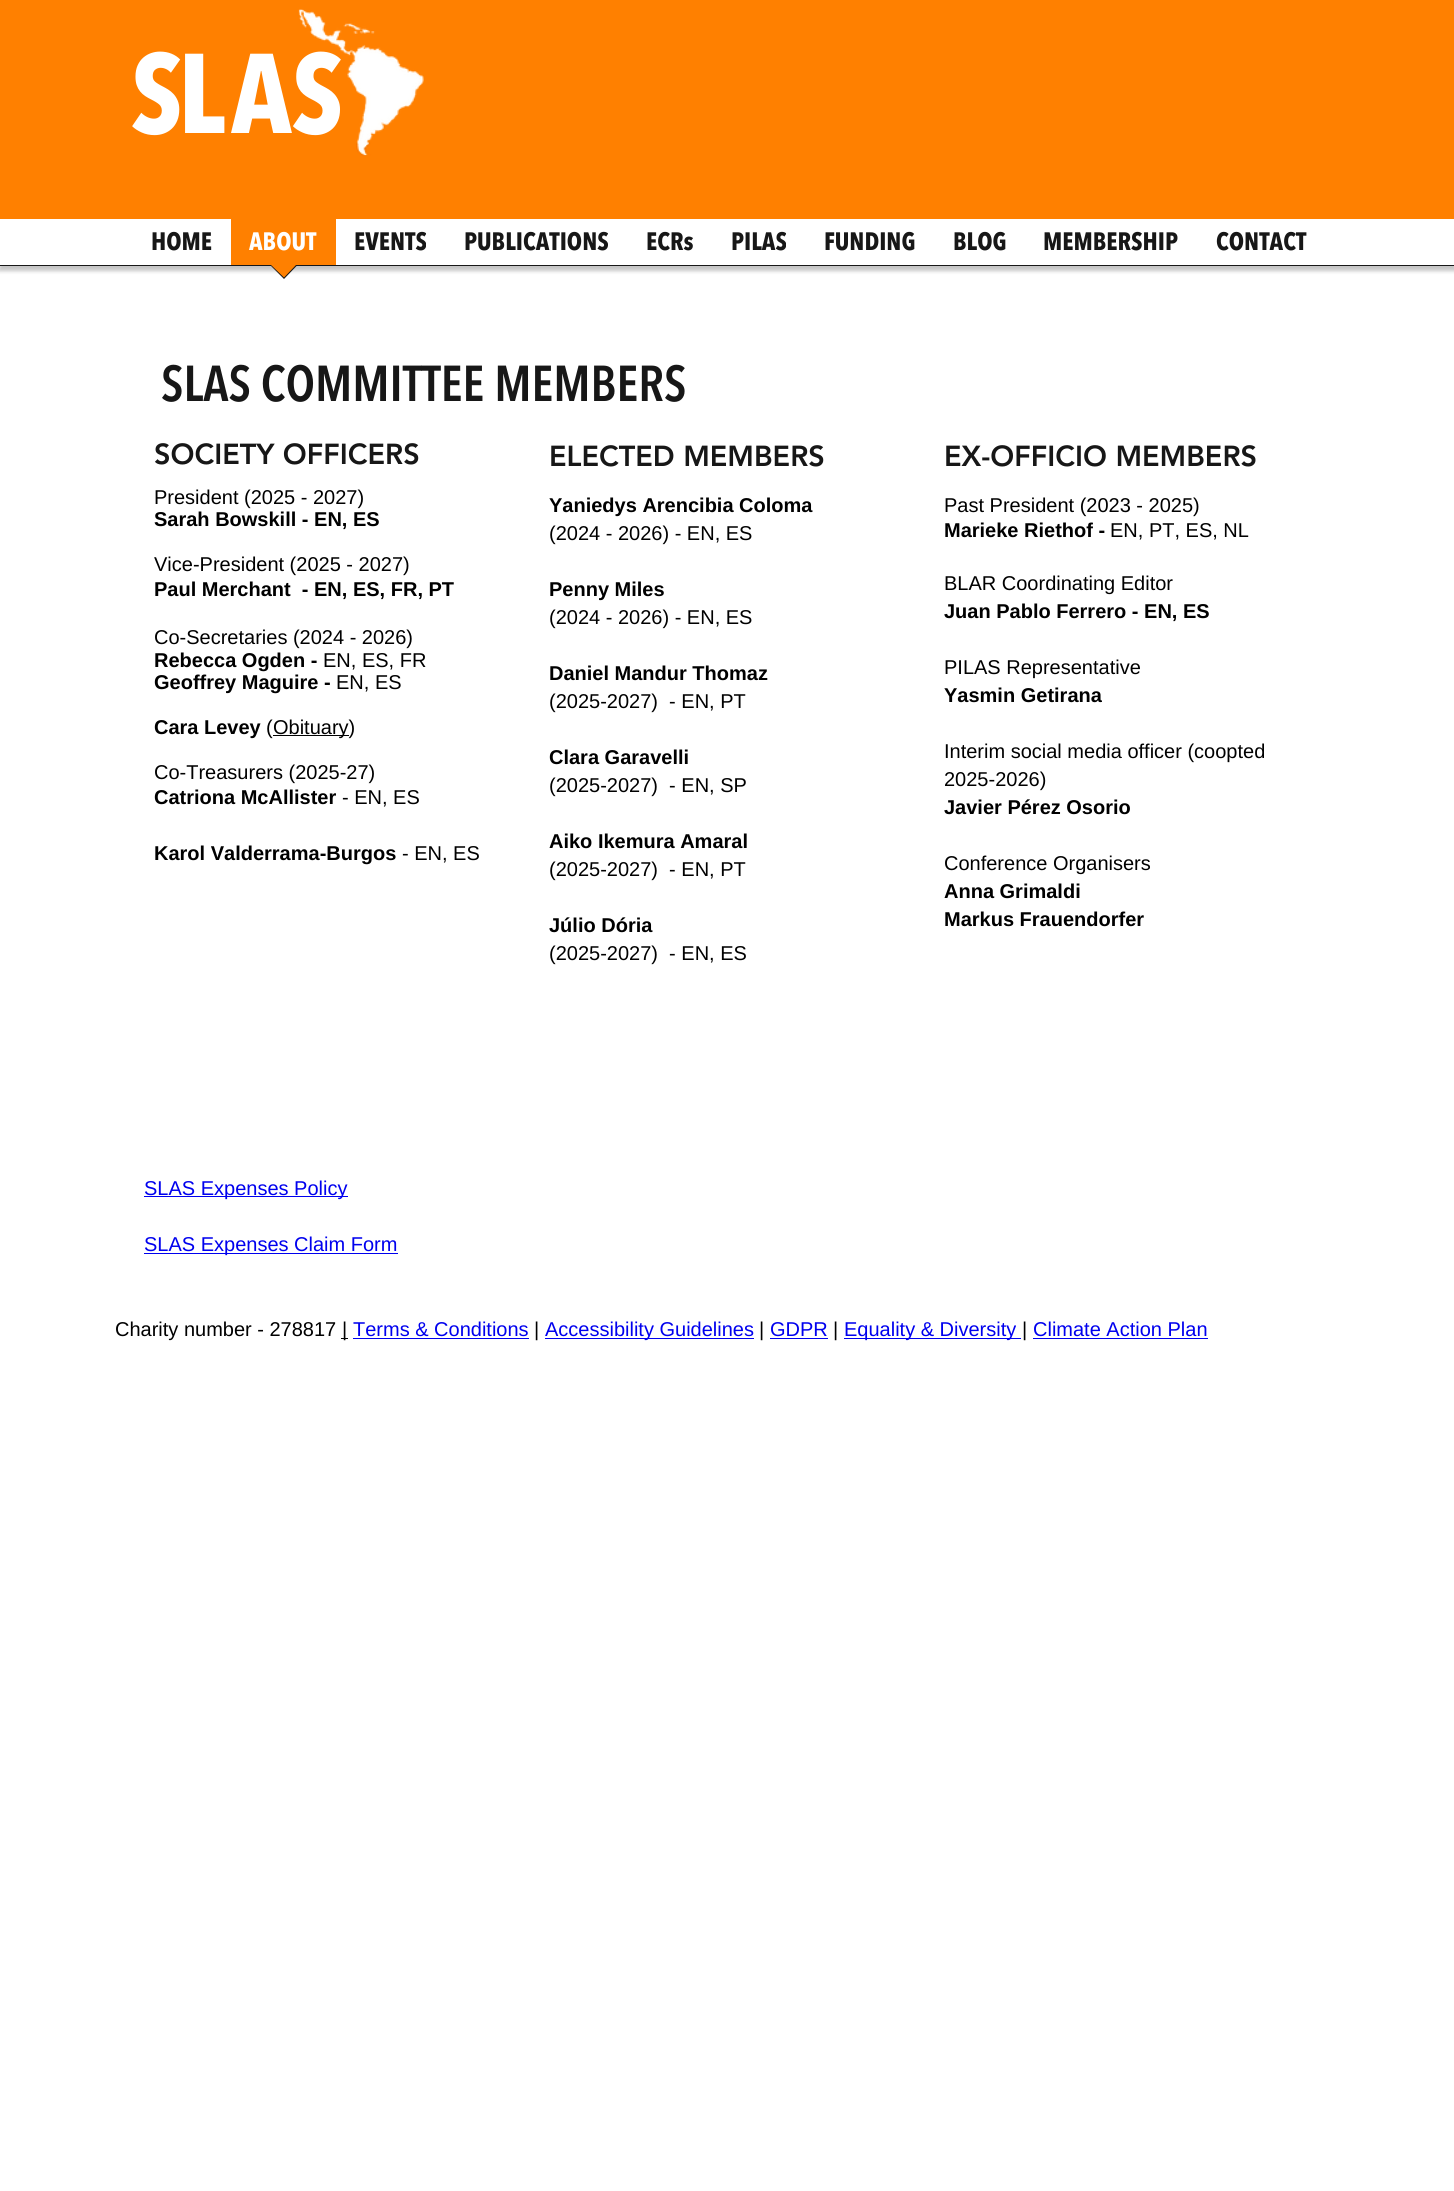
import math
import cairo

surface = cairo.ImageSurface(cairo.FORMAT_RGB24, 1454, 2191)
ctx = cairo.Context(surface)
options = cairo.FontOptions()
options.set_hint_metrics(cairo.HINT_METRICS_OFF)
options.set_hint_style(cairo.HINT_STYLE_NONE)
ctx.set_font_options(options)
ctx.set_miter_limit(4)


def spaced_text(x, y, s, letter, word):
    ctx.move_to(x, y)
    for ch in s:
        ctx.show_text(ch)
        ctx.rel_move_to(letter + word * (ch == ' '), 0)


def round_rect(x, y, w, h, r):
    ctx.new_sub_path()
    for i, (u, v) in enumerate([(x + w - r, y + h - r), (x + r, y + h - r), (x + r, y + r), (x + w - r, y + r)]):
        ctx.arc(u, v, r, i * math.pi / 2, (i + 1) * math.pi / 2)
    ctx.close_path()


def shadow(x, y, w, h, r, blur, alpha):
    ctx.push_group_with_content(cairo.CONTENT_ALPHA)
    ctx.set_operator(cairo.OPERATOR_SOURCE)
    for i in range(15, -16, -2):
        e = blur * i / 6
        if min(w, h) + 2 * e > 0:
            ctx.set_source_rgba(0, 0, 0, alpha * math.erfc((i - 1) / 8.5) / 2)
            round_rect(x - e, y - e, w + 2 * e, h + 2 * e, max(0, min(r + e + blur * .6, min(w, h) / 2 + e)))
            ctx.fill()
    ctx.mask(ctx.pop_group())


def picture(path, x, y, w, h):
    ctx.save()
    ctx.set_source_surface(cairo.ImageSurface.create_from_png(path), x, y)
    ctx.rectangle(x, y, w, h)
    ctx.fill()
    ctx.restore()


ctx.set_source_rgb(1, 1, 1)
ctx.paint()
ctx.set_source_rgb(0, 0, 0)
shadow(-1, 4, 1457, 267, 0, 2, 0.23)
ctx.set_source_rgb(1, 0.502, 0)
ctx.rectangle(0, 0, 1454, 219)
ctx.fill()
ctx.select_font_face("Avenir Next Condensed", cairo.FONT_SLANT_NORMAL, cairo.FONT_WEIGHT_BOLD)
ctx.set_font_size(112)
ctx.set_source_rgb(1, 1, 1)
spaced_text(131, 133, "S", -6, 0)
spaced_text(178, 133, "L", 6, 0)
picture("img1.png", 298, 9, 126, 147)
ctx.move_to(231, 133)
ctx.show_text("AS")
ctx.rectangle(0, 219, 1454, 46)
ctx.fill()
ctx.set_source_rgb(0.09, 0.09, 0.09)
ctx.rectangle(0, 265, 1454, 1)
ctx.fill()
ctx.set_font_size(25)
ctx.move_to(151, 250)
ctx.show_text("HOME")
ctx.set_source_rgb(1, 0.502, 0)
ctx.rectangle(231, 219, 105, 46)
ctx.fill()
ctx.set_source_rgb(1, 1, 1)
ctx.move_to(249, 250)
ctx.show_text("ABOUT")
ctx.set_source_rgb(0.09, 0.09, 0.09)
ctx.new_path()
ctx.move_to(270, 265)
ctx.line_to(297.5, 265)
ctx.line_to(284, 279)
ctx.close_path()
ctx.fill()
ctx.set_source_rgb(1, 0.502, 0)
ctx.new_path()
ctx.move_to(271, 265)
ctx.line_to(296, 265)
ctx.line_to(284, 277.5)
ctx.close_path()
ctx.fill()
ctx.set_source_rgb(0.09, 0.09, 0.09)
ctx.move_to(354, 250)
ctx.show_text("EVENTS")
ctx.move_to(464, 250)
ctx.show_text("PUBLICATIONS")
ctx.move_to(646, 250)
ctx.show_text("ECRs")
ctx.move_to(731, 250)
ctx.show_text("PILAS")
ctx.move_to(824, 250)
ctx.show_text("FUNDING")
ctx.move_to(953, 250)
ctx.show_text("BLOG")
ctx.move_to(1043, 250)
ctx.show_text("MEMBERSHIP")
ctx.move_to(1216, 250)
ctx.show_text("CONTACT")
ctx.select_font_face("Avenir Next Condensed SemiBold")
ctx.set_font_size(50)
ctx.move_to(161, 401)
ctx.show_text("SLAS COMMITTEE MEMBERS")
ctx.select_font_face("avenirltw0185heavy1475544 Black")
ctx.set_font_size(28.75)
ctx.move_to(154, 464)
ctx.show_text("SOCIETY OFFICERS")
ctx.select_font_face("Liberation Sans")
ctx.set_font_size(20)
ctx.set_source_rgb(0, 0, 0)
ctx.move_to(154, 504)
ctx.show_text("President (2025 - 2027)")
ctx.select_font_face("Liberation Sans", cairo.FONT_SLANT_NORMAL, cairo.FONT_WEIGHT_BOLD)
ctx.move_to(154, 526)
ctx.show_text("Sarah Bowskill - EN, ES")
ctx.select_font_face("Liberation Sans")
ctx.move_to(154, 571)
ctx.show_text("Vice-President (2025 - 2027)")
ctx.select_font_face("Liberation Sans", cairo.FONT_SLANT_NORMAL, cairo.FONT_WEIGHT_BOLD)
ctx.move_to(154, 596)
ctx.show_text("Paul Merchant  - EN, ES, FR, PT")
ctx.select_font_face("Liberation Sans")
ctx.move_to(154, 644)
ctx.show_text("Co-Secretaries (2024 - 2026)")
ctx.select_font_face("Liberation Sans", cairo.FONT_SLANT_NORMAL, cairo.FONT_WEIGHT_BOLD)
ctx.move_to(154, 667)
ctx.show_text("Rebecca Ogden -")
ctx.select_font_face("Liberation Sans")
ctx.move_to(323, 667)
ctx.show_text("EN, ES, FR")
ctx.select_font_face("Liberation Sans", cairo.FONT_SLANT_NORMAL, cairo.FONT_WEIGHT_BOLD)
ctx.move_to(154, 689)
ctx.show_text("Geoffrey Maguire -")
ctx.select_font_face("Liberation Sans")
ctx.move_to(336, 689)
ctx.show_text("EN, ES")
ctx.select_font_face("Liberation Sans", cairo.FONT_SLANT_NORMAL, cairo.FONT_WEIGHT_BOLD)
ctx.move_to(154, 734)
ctx.show_text("Cara Levey")
ctx.select_font_face("Liberation Sans")
ctx.move_to(266, 734)
ctx.show_text("(")
ctx.rectangle(273, 735, 76, 1)
ctx.fill()
ctx.move_to(273, 734)
ctx.show_text("Obituary)")
ctx.move_to(154, 779)
ctx.show_text("Co-Treasurers (2025-27)")
ctx.select_font_face("Liberation Sans", cairo.FONT_SLANT_NORMAL, cairo.FONT_WEIGHT_BOLD)
ctx.move_to(154, 804)
ctx.show_text("Catriona McAllister")
ctx.select_font_face("Liberation Sans")
ctx.move_to(342, 804)
ctx.show_text("- EN, ES")
ctx.select_font_face("Liberation Sans", cairo.FONT_SLANT_NORMAL, cairo.FONT_WEIGHT_BOLD)
ctx.move_to(154, 860)
ctx.show_text("Karol Valderrama-Burgos")
ctx.select_font_face("Liberation Sans")
ctx.move_to(402, 860)
ctx.show_text("- EN, ES")
ctx.select_font_face("avenirltw0185heavy1475544 Black")
ctx.set_font_size(28.75)
ctx.set_source_rgb(0.09, 0.09, 0.09)
ctx.move_to(549, 466)
ctx.show_text("ELECTED MEMBERS")
ctx.select_font_face("Liberation Sans", cairo.FONT_SLANT_NORMAL, cairo.FONT_WEIGHT_BOLD)
ctx.set_font_size(20)
ctx.set_source_rgb(0, 0, 0)
ctx.move_to(549, 512)
ctx.show_text("Yaniedys Arencibia Coloma")
ctx.select_font_face("Liberation Sans")
ctx.move_to(549, 540)
ctx.show_text("(2024 - 2026) - EN, ES")
ctx.select_font_face("Liberation Sans", cairo.FONT_SLANT_NORMAL, cairo.FONT_WEIGHT_BOLD)
ctx.move_to(549, 596)
ctx.show_text("Penny Miles")
ctx.select_font_face("Liberation Sans")
ctx.move_to(549, 624)
ctx.show_text("(2024 - 2026) - EN, ES")
ctx.select_font_face("Liberation Sans", cairo.FONT_SLANT_NORMAL, cairo.FONT_WEIGHT_BOLD)
ctx.move_to(549, 680)
ctx.show_text("Daniel Mandur Thomaz")
ctx.select_font_face("Liberation Sans")
ctx.move_to(549, 708)
ctx.show_text("(2025-2027)  - EN, PT")
ctx.select_font_face("Liberation Sans", cairo.FONT_SLANT_NORMAL, cairo.FONT_WEIGHT_BOLD)
ctx.move_to(549, 764)
ctx.show_text("Clara Garavelli")
ctx.select_font_face("Liberation Sans")
ctx.move_to(549, 792)
ctx.show_text("(2025-2027)  - EN, SP")
ctx.select_font_face("Liberation Sans", cairo.FONT_SLANT_NORMAL, cairo.FONT_WEIGHT_BOLD)
ctx.move_to(549, 848)
ctx.show_text("Aiko Ikemura Amaral")
ctx.select_font_face("Liberation Sans")
ctx.move_to(549, 876)
ctx.show_text("(2025-2027)  - EN, PT")
ctx.select_font_face("Liberation Sans", cairo.FONT_SLANT_NORMAL, cairo.FONT_WEIGHT_BOLD)
ctx.move_to(549, 932)
ctx.show_text("Júlio Dória")
ctx.select_font_face("Liberation Sans")
ctx.move_to(549, 960)
ctx.show_text("(2025-2027)  - EN, ES")
ctx.select_font_face("avenirltw0185heavy1475544 Black")
ctx.set_font_size(28.75)
ctx.set_source_rgb(0.09, 0.09, 0.09)
ctx.move_to(944, 466)
ctx.show_text("EX-OFFICIO MEMBERS")
ctx.select_font_face("Liberation Sans")
ctx.set_font_size(20)
ctx.set_source_rgb(0, 0, 0)
ctx.move_to(944, 512)
ctx.show_text("Past President (2023 - 2025)")
ctx.select_font_face("Liberation Sans", cairo.FONT_SLANT_NORMAL, cairo.FONT_WEIGHT_BOLD)
ctx.move_to(944, 537)
ctx.show_text("Marieke Riethof -")
ctx.select_font_face("Liberation Sans")
ctx.move_to(1110, 537)
ctx.show_text("EN, PT, ES, NL")
ctx.move_to(944, 590)
ctx.show_text("BLAR Coordinating Editor")
ctx.select_font_face("Liberation Sans", cairo.FONT_SLANT_NORMAL, cairo.FONT_WEIGHT_BOLD)
ctx.move_to(944, 618)
ctx.show_text("Juan Pablo Ferrero - EN, ES")
ctx.select_font_face("Liberation Sans")
ctx.move_to(944, 674)
ctx.show_text("PILAS Representative")
ctx.select_font_face("Liberation Sans", cairo.FONT_SLANT_NORMAL, cairo.FONT_WEIGHT_BOLD)
ctx.move_to(944, 702)
ctx.show_text("Yasmin Getirana")
ctx.select_font_face("Liberation Sans")
ctx.move_to(944, 758)
ctx.show_text("Interim social media officer (coopted")
ctx.move_to(944, 786)
ctx.show_text("2025-2026)")
ctx.select_font_face("Liberation Sans", cairo.FONT_SLANT_NORMAL, cairo.FONT_WEIGHT_BOLD)
ctx.move_to(944, 814)
ctx.show_text("Javier Pérez Osorio")
ctx.select_font_face("Liberation Sans")
ctx.move_to(944, 870)
ctx.show_text("Conference Organisers")
ctx.select_font_face("Liberation Sans", cairo.FONT_SLANT_NORMAL, cairo.FONT_WEIGHT_BOLD)
ctx.move_to(944, 898)
ctx.show_text("Anna Grimaldi")
ctx.move_to(944, 926)
ctx.show_text("Markus Frauendorfer")
ctx.set_source_rgb(0, 0, 0.933)
ctx.rectangle(144, 1196, 204, 1)
ctx.fill()
ctx.select_font_face("Liberation Sans")
ctx.move_to(144, 1195)
ctx.show_text("SLAS Expenses Policy")
ctx.rectangle(144, 1253, 254, 1)
ctx.fill()
ctx.move_to(144, 1251)
ctx.show_text("SLAS Expenses Claim Form")
ctx.set_source_rgb(0, 0, 0)
ctx.move_to(115, 1336)
ctx.show_text("Charity number - 278817")
ctx.rectangle(341, 1338, 7, 1)
ctx.fill()
ctx.move_to(342, 1336)
ctx.show_text("|")
ctx.set_source_rgb(0, 0, 0.933)
ctx.move_to(353, 1336)
ctx.show_text("Terms & Conditions")
ctx.rectangle(353, 1338, 176, 1)
ctx.fill()
ctx.set_source_rgb(0, 0, 0)
ctx.move_to(534, 1336)
ctx.show_text("|")
ctx.set_source_rgb(0, 0, 0.933)
ctx.rectangle(545, 1338, 209, 1)
ctx.fill()
ctx.move_to(545, 1336)
ctx.show_text("Accessibility Guidelines")
ctx.set_source_rgb(0, 0, 0)
ctx.move_to(759, 1336)
ctx.show_text("|")
ctx.set_source_rgb(0, 0, 0.933)
ctx.move_to(770, 1336)
ctx.show_text("GDPR")
ctx.rectangle(770, 1338, 58, 1)
ctx.fill()
ctx.set_source_rgb(0, 0, 0)
ctx.move_to(833, 1336)
ctx.show_text("|")
ctx.set_source_rgb(0, 0, 0.933)
ctx.rectangle(844, 1338, 177, 1)
ctx.fill()
ctx.move_to(844, 1336)
ctx.show_text("Equality & Diversity")
ctx.set_source_rgb(0, 0, 0)
ctx.move_to(1022, 1336)
ctx.show_text("|")
ctx.set_source_rgb(0, 0, 0.933)
ctx.move_to(1033, 1336)
ctx.show_text("Climate Action Plan")
ctx.rectangle(1033, 1338, 175, 1)
ctx.fill()
surface.write_to_png("page.png")
